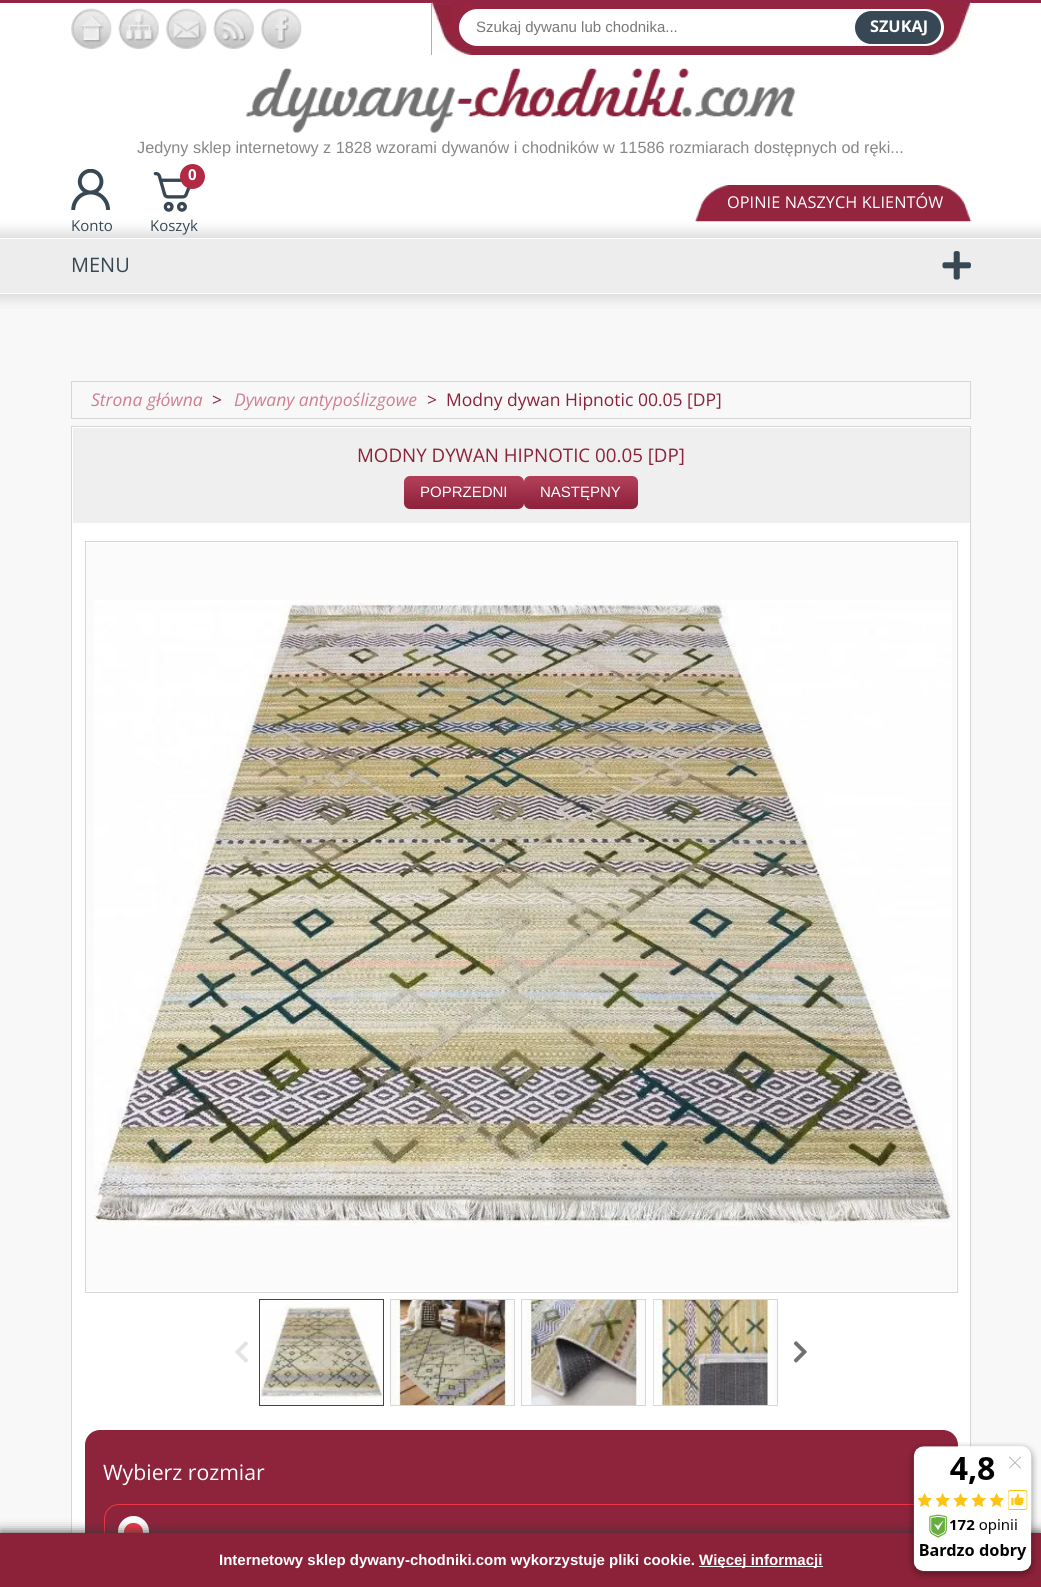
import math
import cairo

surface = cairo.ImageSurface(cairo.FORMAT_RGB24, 1041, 1587)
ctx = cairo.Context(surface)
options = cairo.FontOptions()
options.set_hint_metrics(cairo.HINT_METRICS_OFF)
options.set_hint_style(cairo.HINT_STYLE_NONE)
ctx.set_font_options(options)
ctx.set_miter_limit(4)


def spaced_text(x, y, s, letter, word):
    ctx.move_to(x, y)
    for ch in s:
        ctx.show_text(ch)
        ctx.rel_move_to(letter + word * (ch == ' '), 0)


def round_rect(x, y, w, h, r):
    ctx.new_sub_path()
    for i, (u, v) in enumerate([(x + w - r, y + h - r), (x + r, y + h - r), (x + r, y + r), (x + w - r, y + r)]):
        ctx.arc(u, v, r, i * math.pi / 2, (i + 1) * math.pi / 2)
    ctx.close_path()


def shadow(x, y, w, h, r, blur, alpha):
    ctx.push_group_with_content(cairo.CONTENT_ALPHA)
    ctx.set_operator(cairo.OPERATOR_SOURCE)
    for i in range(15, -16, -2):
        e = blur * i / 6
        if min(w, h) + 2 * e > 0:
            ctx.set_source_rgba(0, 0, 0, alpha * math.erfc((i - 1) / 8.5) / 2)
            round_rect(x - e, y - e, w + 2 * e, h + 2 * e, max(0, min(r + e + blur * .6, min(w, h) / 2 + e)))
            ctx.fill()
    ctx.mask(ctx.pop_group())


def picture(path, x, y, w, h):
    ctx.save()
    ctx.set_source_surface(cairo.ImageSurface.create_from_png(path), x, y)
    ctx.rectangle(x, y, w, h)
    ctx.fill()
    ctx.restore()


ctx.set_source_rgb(0.969, 0.969, 0.969)
ctx.paint()
ctx.set_source_rgb(0.58, 0.141, 0.263)
ctx.rectangle(0, 0, 1041, 3)
ctx.fill()
ctx.set_source_rgb(1, 1, 1)
ctx.rectangle(0, 3, 1041, 235)
ctx.fill()
picture("img1.png", 71, 8, 41, 41)
picture("img2.png", 118, 8, 41, 41)
picture("img3.png", 166, 8, 41, 41)
picture("img4.png", 213, 8, 41, 41)
picture("img5.png", 261, 8, 41, 41)
ctx.set_source_rgb(0.58, 0.145, 0.251)
ctx.rectangle(431, 3, 500, 52)
ctx.fill()
picture("img6.png", 431, 2, 41, 53)
picture("img7.png", 931, 2, 40, 53)
ctx.set_source_rgb(1, 1, 1)
round_rect(459, 9, 485, 37, 18.5)
ctx.fill()
ctx.select_font_face("Liberation Sans")
ctx.set_font_size(15)
ctx.set_source_rgb(0.471, 0.471, 0.471)
ctx.move_to(476, 32)
ctx.show_text("Szukaj dywanu lub chodnika...")
ctx.set_source_rgb(0.216, 0.278, 0.325)
round_rect(855, 11, 86, 33, 16.5)
ctx.fill()
ctx.select_font_face("Open Sans", cairo.FONT_SLANT_NORMAL, cairo.FONT_WEIGHT_BOLD)
ctx.set_font_size(16.25)
ctx.set_source_rgb(1, 1, 1)
ctx.move_to(870, 32)
ctx.show_text("SZUKAJ")
picture("img8.png", 246, 68, 550, 65)
ctx.select_font_face("Liberation Sans")
ctx.set_source_rgb(0.529, 0.529, 0.529)
ctx.move_to(137, 153)
ctx.show_text("Jedyny sklep internetowy z 1828 wzorami dywanów i chodników w 11586 rozmiarach dostępnych od ręki...")
picture("img9.png", 71, 169, 39, 41)
ctx.set_source_rgb(0.839, 0.839, 0.839)
shadow(-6, 231, 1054, 69, 0, 6, 0.8)
ctx.select_font_face("Open Sans")
ctx.set_font_size(15)
ctx.set_source_rgb(0.216, 0.282, 0.325)
ctx.move_to(71, 231)
ctx.show_text("Konto")
picture("img10.png", 153, 172, 38, 40)
ctx.set_source_rgb(0.702, 0.157, 0.263)
ctx.arc(192.5, 176.5, 12.5, 0, 2 * math.pi)
ctx.fill()
ctx.select_font_face("Open Sans", cairo.FONT_SLANT_NORMAL, cairo.FONT_WEIGHT_BOLD)
ctx.set_source_rgb(1, 1, 1)
ctx.move_to(188, 180)
ctx.show_text("0")
ctx.select_font_face("Open Sans")
ctx.set_source_rgb(0.216, 0.282, 0.325)
ctx.move_to(150, 231)
ctx.show_text("Koszyk")
picture("img11.png", 695, 185, 277, 37)
ctx.set_font_size(16.25)
ctx.set_source_rgb(1, 1, 1)
spaced_text(727, 208, "OPINIE NASZYCH KLIENTÓW", 0.1, 0)
ctx.set_source_rgb(0.929, 0.929, 0.929)
ctx.rectangle(0, 239, 1041, 54)
ctx.fill()
ctx.set_source_rgb(1, 1, 1)
ctx.rectangle(0, 238, 1041, 1)
ctx.fill()
ctx.rectangle(0, 293, 1041, 1)
ctx.fill()
ctx.set_font_size(20)
ctx.set_source_rgb(0.216, 0.282, 0.325)
ctx.move_to(71, 272)
ctx.show_text("MENU")
picture("img12.png", 942, 251, 29, 29)
ctx.rectangle(71.5, 381.5, 899, 37)
ctx.set_source_rgb(0.843, 0.843, 0.843)
ctx.set_line_width(1)
ctx.stroke()
ctx.select_font_face("Open Sans", cairo.FONT_SLANT_ITALIC)
ctx.set_font_size(17.5)
ctx.set_source_rgb(0.812, 0.498, 0.569)
ctx.move_to(91, 406)
ctx.show_text("Strona główna")
ctx.select_font_face("Open Sans")
ctx.set_source_rgb(0.549, 0.133, 0.224)
ctx.move_to(212, 406)
ctx.show_text(">")
ctx.select_font_face("Open Sans", cairo.FONT_SLANT_ITALIC)
ctx.set_source_rgb(0.812, 0.498, 0.569)
ctx.move_to(234, 406)
ctx.show_text("Dywany antypoślizgowe")
ctx.select_font_face("Open Sans")
ctx.set_source_rgb(0.549, 0.133, 0.224)
ctx.move_to(427, 406)
ctx.show_text(">")
ctx.move_to(446, 406)
ctx.show_text("Modny dywan Hipnotic 00.05 [DP]")
ctx.set_source_rgb(1, 1, 1)
ctx.rectangle(72, 427, 898, 1106)
ctx.fill()
ctx.rectangle(71.5, 426.5, 899, 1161)
ctx.set_source_rgb(0.843, 0.843, 0.843)
ctx.stroke()
ctx.set_source_rgb(0.937, 0.937, 0.937)
ctx.rectangle(73, 428, 897, 95)
ctx.fill()
ctx.set_font_size(18.75)
ctx.set_source_rgb(0.549, 0.133, 0.224)
ctx.move_to(357, 462)
ctx.show_text("MODNY DYWAN HIPNOTIC 00.05 [DP]")
gradient = cairo.LinearGradient(464, 476, 464, 509)
gradient.add_color_stop_rgba(0, 0.69, 0.243, 0.341, 1)
gradient.add_color_stop_rgba(0.16, 0.682, 0.235, 0.333, 1)
gradient.add_color_stop_rgba(0.76, 0.584, 0.153, 0.259, 1)
gradient.add_color_stop_rgba(1, 0.557, 0.133, 0.227, 1)
ctx.set_source(gradient)
round_rect(404, 476, 120, 33, 6)
ctx.fill()
ctx.select_font_face("Liberation Sans")
ctx.set_font_size(15)
ctx.set_source_rgb(1, 1, 1)
ctx.move_to(420, 497)
ctx.show_text("POPRZEDNI")
gradient = cairo.LinearGradient(581, 476, 581, 509)
gradient.add_color_stop_rgba(0, 0.69, 0.243, 0.341, 1)
gradient.add_color_stop_rgba(0.16, 0.682, 0.235, 0.333, 1)
gradient.add_color_stop_rgba(0.76, 0.584, 0.153, 0.259, 1)
gradient.add_color_stop_rgba(1, 0.557, 0.133, 0.227, 1)
ctx.set_source(gradient)
round_rect(524, 476, 114, 33, 6)
ctx.fill()
ctx.set_source_rgb(1, 1, 1)
ctx.move_to(540, 497)
ctx.show_text("NASTĘPNY")
ctx.rectangle(85.5, 541.5, 872, 751)
ctx.set_source_rgb(0.843, 0.843, 0.843)
ctx.stroke()
ctx.set_source_rgb(0.984, 0.984, 0.984)
ctx.rectangle(86, 543, 870, 748)
ctx.fill()
picture("img13.png", 94, 600, 858, 625)
picture("img14.png", 235, 1341, 13, 22)
ctx.rectangle(259.5, 1299.5, 124, 106)
ctx.fill_preserve()
ctx.set_source_rgb(0.549, 0.133, 0.224)
ctx.stroke()
picture("img15.png", 260, 1300, 123, 100)
ctx.set_source_rgb(0.984, 0.984, 0.984)
ctx.rectangle(390.5, 1299.5, 124, 106)
ctx.fill_preserve()
ctx.set_source_rgb(0.843, 0.843, 0.843)
ctx.stroke()
picture("img16.png", 396, 1300, 115, 105)
ctx.set_source_rgb(0.984, 0.984, 0.984)
ctx.rectangle(521.5, 1299.5, 124, 106)
ctx.fill_preserve()
ctx.set_source_rgb(0.843, 0.843, 0.843)
ctx.stroke()
picture("img17.png", 523, 1300, 116, 105)
ctx.set_source_rgb(0.984, 0.984, 0.984)
ctx.rectangle(773, 1300, 4, 105)
ctx.fill()
ctx.rectangle(653.5, 1299.5, 124, 106)
ctx.set_source_rgb(0.843, 0.843, 0.843)
ctx.stroke()
picture("img18.png", 653, 1300, 120, 105)
picture("img19.png", 793, 1341, 14, 22)
ctx.set_source_rgb(0.557, 0.141, 0.235)
round_rect(85, 1430, 873, 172, 15)
ctx.fill()
ctx.select_font_face("Open Sans")
ctx.set_font_size(21.25)
ctx.set_source_rgb(1, 1, 1)
ctx.move_to(103, 1480)
ctx.show_text("Wybierz rozmiar")
round_rect(104.5, 1504.5, 834, 55, 14.5)
ctx.set_source_rgb(0.925, 0.212, 0.271)
ctx.stroke()
ctx.set_source_rgb(1, 1, 1)
round_rect(118, 1516, 31, 32, 15.5)
ctx.fill()
ctx.set_source_rgb(0.925, 0.212, 0.271)
round_rect(124, 1523, 19, 18, 9)
ctx.fill()
ctx.set_source_rgb(0.2, 0.2, 0.2)
shadow(0, 1533, 1041, 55, 0, 6, 1)
ctx.set_source_rgb(0.549, 0.133, 0.224)
ctx.rectangle(0, 1533, 1041, 54)
ctx.fill()
ctx.select_font_face("Liberation Sans", cairo.FONT_SLANT_NORMAL, cairo.FONT_WEIGHT_BOLD)
ctx.set_font_size(15)
ctx.set_source_rgb(1, 1, 1)
ctx.move_to(219, 1565)
ctx.show_text("Internetowy sklep dywany-chodniki.com wykorzystuje pliki cookie.")
ctx.rectangle(699, 1566, 124, 1)
ctx.fill()
ctx.move_to(699, 1565)
ctx.show_text("Więcej informacji")
picture("img20.png", 907, 1442, 131, 137)
surface.write_to_png("page.png")
